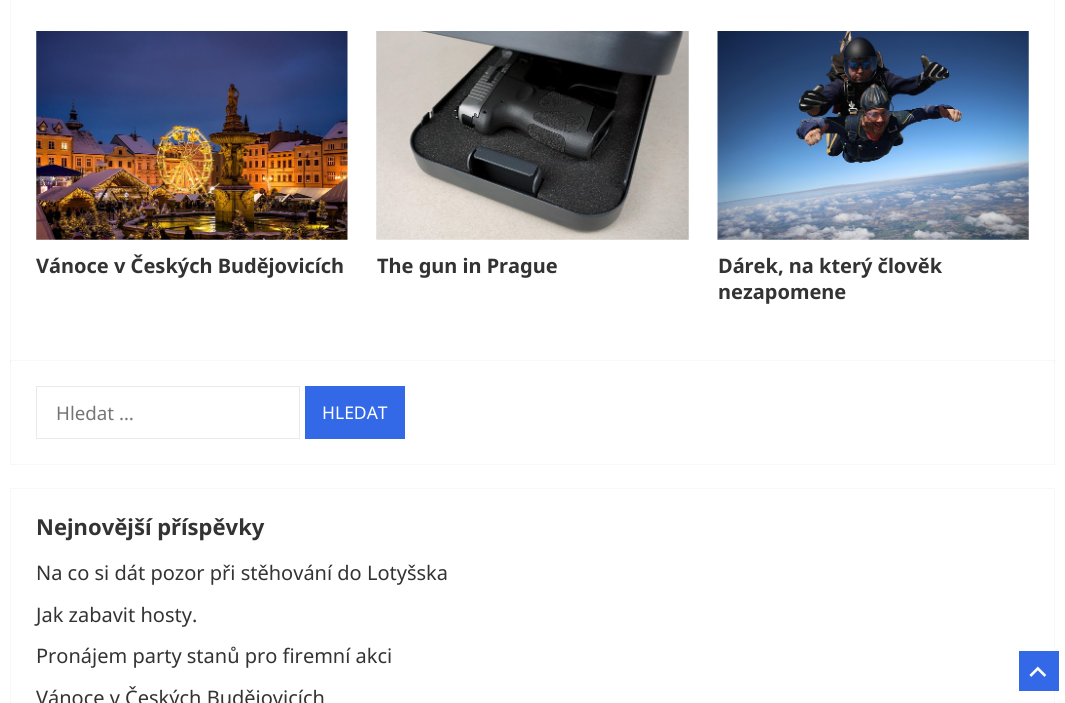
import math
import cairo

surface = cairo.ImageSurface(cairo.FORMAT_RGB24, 1065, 703)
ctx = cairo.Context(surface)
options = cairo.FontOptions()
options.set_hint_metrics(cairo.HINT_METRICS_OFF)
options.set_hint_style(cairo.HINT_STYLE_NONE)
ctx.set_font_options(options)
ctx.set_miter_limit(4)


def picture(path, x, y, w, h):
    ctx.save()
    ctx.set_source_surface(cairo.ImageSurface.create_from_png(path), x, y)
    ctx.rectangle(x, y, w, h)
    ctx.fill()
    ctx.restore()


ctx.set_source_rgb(1, 1, 1)
ctx.paint()
ctx.rectangle(10.5, -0.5, 1044, 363)
ctx.set_source_rgb(0.969, 0.969, 0.969)
ctx.set_line_width(1)
ctx.stroke()
picture("img1.png", 36, 31, 312, 209)
ctx.select_font_face("Noto Sans", cairo.FONT_SLANT_NORMAL, cairo.FONT_WEIGHT_BOLD)
ctx.set_font_size(20)
ctx.set_source_rgb(0.2, 0.2, 0.2)
ctx.move_to(36, 273)
ctx.show_text("Vánoce v Českých Budějovicích")
picture("img2.png", 376, 31, 313, 209)
ctx.move_to(377, 273)
ctx.show_text("The gun in Prague")
picture("img3.png", 717, 31, 312, 209)
ctx.move_to(718, 273)
ctx.show_text("Dárek, na který člověk")
ctx.move_to(718, 299)
ctx.show_text("nezapomene")
ctx.rectangle(10.5, 360.5, 1044, 104)
ctx.set_source_rgba(0, 0, 0, 0.03)
ctx.stroke()
ctx.set_source_rgb(1, 1, 1)
ctx.rectangle(11, 362, 1043, 1)
ctx.fill()
ctx.rectangle(36.5, 386.5, 263, 52)
ctx.set_source_rgb(0.914, 0.914, 0.914)
ctx.stroke()
ctx.select_font_face("Noto Sans")
ctx.set_font_size(18.75)
ctx.set_source_rgb(0.459, 0.459, 0.459)
ctx.move_to(56, 420)
ctx.show_text("Hledat …")
ctx.set_source_rgb(0.2, 0.412, 0.906)
ctx.rectangle(305, 386, 100, 53)
ctx.fill()
ctx.set_font_size(17.5)
ctx.set_source_rgb(1, 1, 1)
ctx.move_to(322, 419)
ctx.show_text("HLEDAT")
ctx.rectangle(10.5, 488.5, 1044, 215)
ctx.set_source_rgb(0.969, 0.969, 0.969)
ctx.stroke()
ctx.select_font_face("Noto Sans", cairo.FONT_SLANT_NORMAL, cairo.FONT_WEIGHT_BOLD)
ctx.set_font_size(22)
ctx.set_source_rgb(0.2, 0.2, 0.2)
ctx.move_to(36, 535)
ctx.show_text("Nejnovější příspěvky")
ctx.select_font_face("Noto Sans")
ctx.set_font_size(20)
ctx.move_to(36, 580)
ctx.show_text("Na co si dát pozor při stěhování do Lotyšska")
ctx.move_to(36, 622)
ctx.show_text("Jak zabavit hosty.")
ctx.move_to(36, 663)
ctx.show_text("Pronájem party stanů pro firemní akci")
ctx.move_to(36, 705)
ctx.show_text("Vánoce v Českých Budějovicích")
ctx.set_source_rgb(0.2, 0.412, 0.906)
ctx.rectangle(1019, 651, 40, 40)
ctx.fill()
picture("img4.png", 1029, 666, 18, 11)
surface.write_to_png("page.png")
